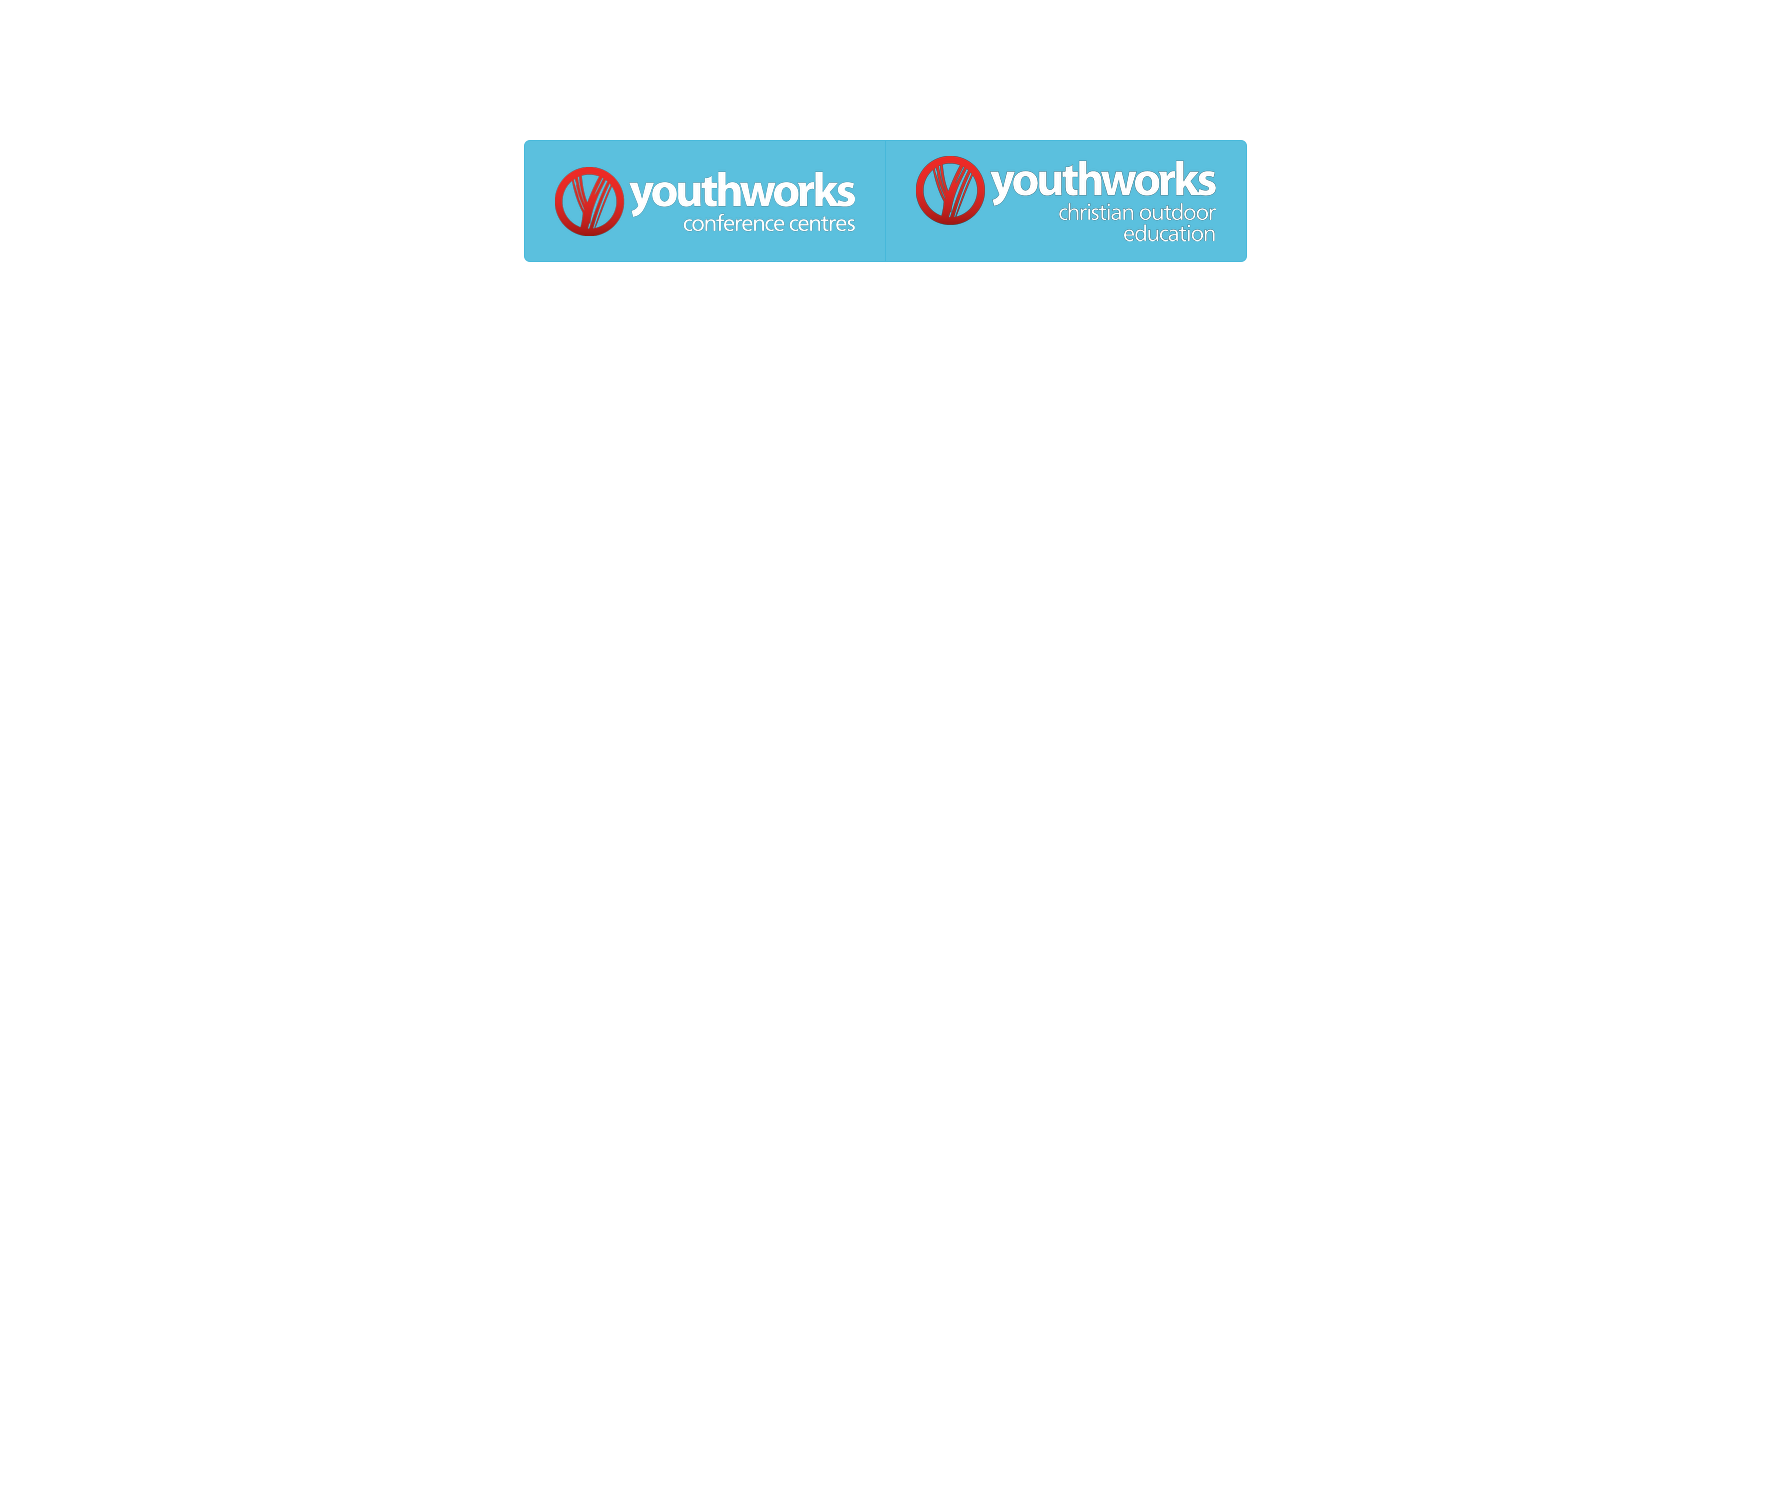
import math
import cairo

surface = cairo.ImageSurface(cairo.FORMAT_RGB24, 1771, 1505)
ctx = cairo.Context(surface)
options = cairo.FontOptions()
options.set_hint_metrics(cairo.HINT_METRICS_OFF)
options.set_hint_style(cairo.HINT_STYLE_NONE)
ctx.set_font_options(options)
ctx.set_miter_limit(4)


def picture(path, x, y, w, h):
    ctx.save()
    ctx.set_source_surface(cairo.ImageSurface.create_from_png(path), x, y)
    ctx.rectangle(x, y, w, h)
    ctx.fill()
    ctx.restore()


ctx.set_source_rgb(1, 1, 1)
ctx.paint()
ctx.set_source_rgb(0.357, 0.753, 0.871)
ctx.new_path()
ctx.move_to(530, 140.5)
ctx.line_to(885.5, 140.5)
ctx.line_to(885.5, 261.5)
ctx.line_to(530, 261.5)
ctx.curve_to(527, 261.5, 524.5, 259, 524.5, 256)
ctx.line_to(524.5, 146)
ctx.curve_to(524.5, 143, 527, 140.5, 530, 140.5)
ctx.close_path()
ctx.fill_preserve()
ctx.set_source_rgb(0.275, 0.722, 0.855)
ctx.set_line_width(1)
ctx.stroke()
picture("img1.png", 555, 167, 300, 69)
ctx.set_source_rgb(0.357, 0.753, 0.871)
ctx.new_path()
ctx.move_to(885.5, 140.5)
ctx.line_to(1241, 140.5)
ctx.curve_to(1244, 140.5, 1246.5, 143, 1246.5, 146)
ctx.line_to(1246.5, 256)
ctx.curve_to(1246.5, 259, 1244, 261.5, 1241, 261.5)
ctx.line_to(885.5, 261.5)
ctx.close_path()
ctx.fill_preserve()
ctx.set_source_rgb(0.275, 0.722, 0.855)
ctx.stroke()
picture("img2.png", 916, 156, 300, 86)
surface.write_to_png("page.png")
